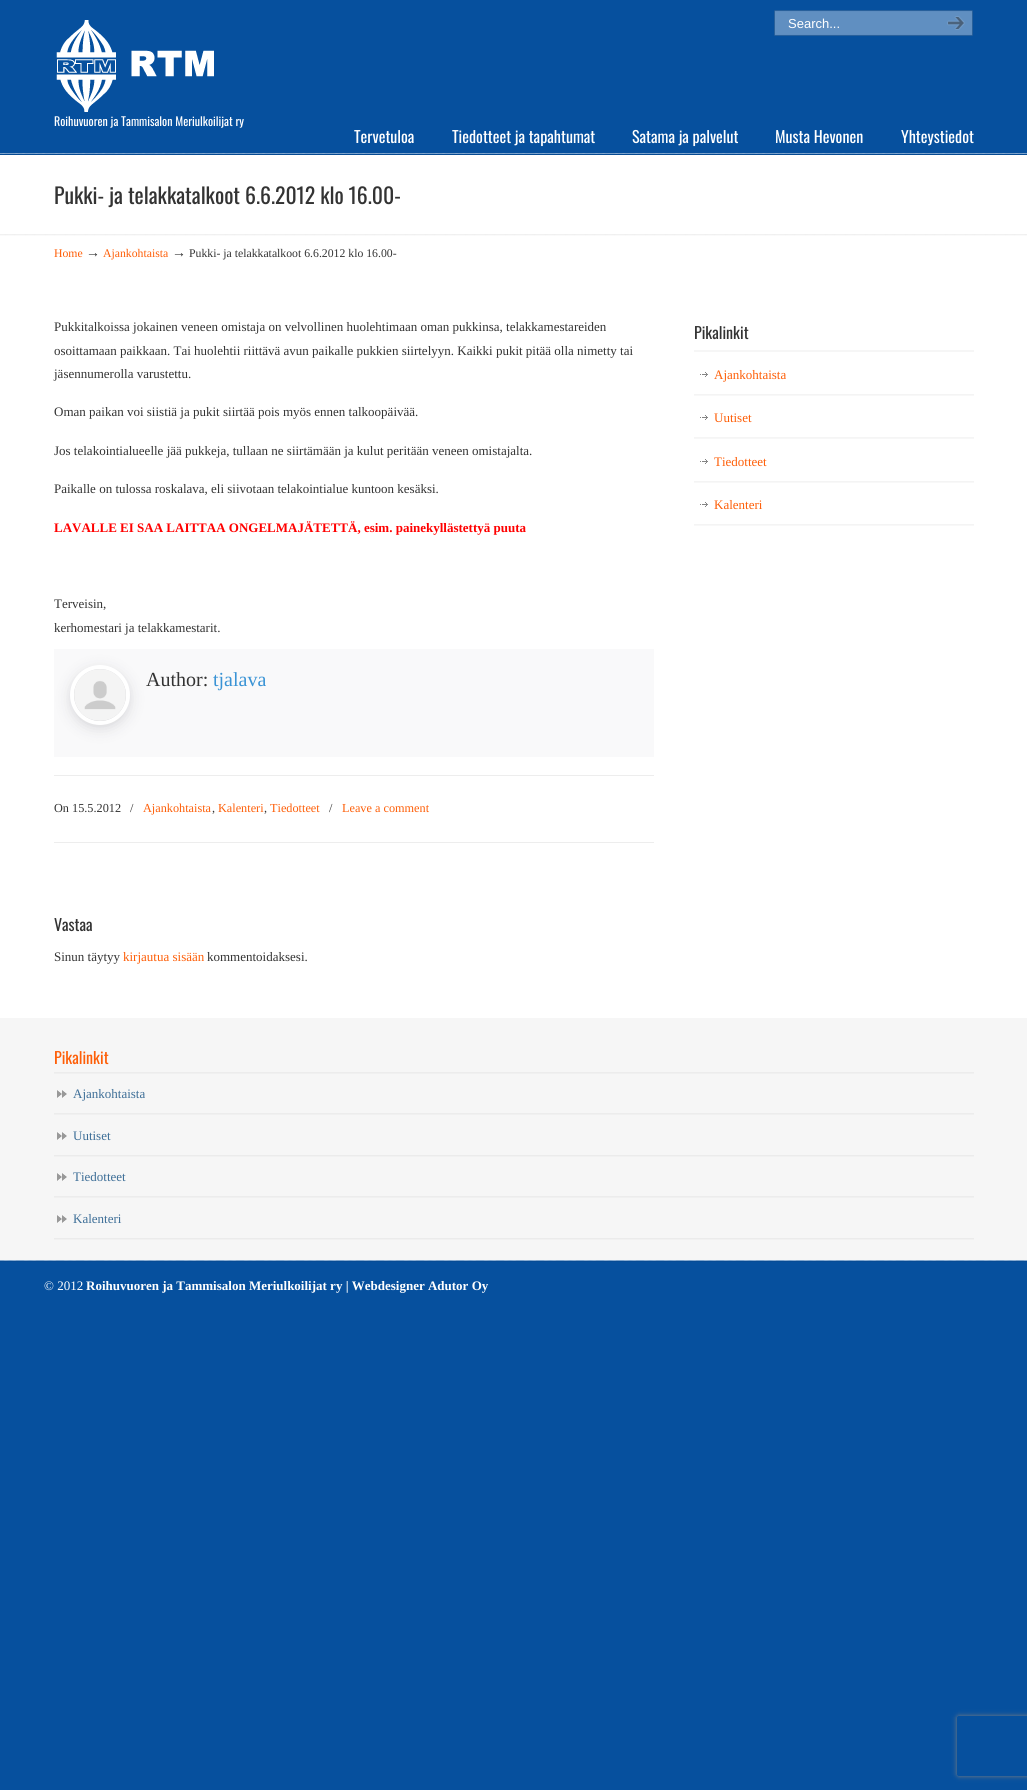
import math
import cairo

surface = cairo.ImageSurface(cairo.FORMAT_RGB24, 1027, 1790)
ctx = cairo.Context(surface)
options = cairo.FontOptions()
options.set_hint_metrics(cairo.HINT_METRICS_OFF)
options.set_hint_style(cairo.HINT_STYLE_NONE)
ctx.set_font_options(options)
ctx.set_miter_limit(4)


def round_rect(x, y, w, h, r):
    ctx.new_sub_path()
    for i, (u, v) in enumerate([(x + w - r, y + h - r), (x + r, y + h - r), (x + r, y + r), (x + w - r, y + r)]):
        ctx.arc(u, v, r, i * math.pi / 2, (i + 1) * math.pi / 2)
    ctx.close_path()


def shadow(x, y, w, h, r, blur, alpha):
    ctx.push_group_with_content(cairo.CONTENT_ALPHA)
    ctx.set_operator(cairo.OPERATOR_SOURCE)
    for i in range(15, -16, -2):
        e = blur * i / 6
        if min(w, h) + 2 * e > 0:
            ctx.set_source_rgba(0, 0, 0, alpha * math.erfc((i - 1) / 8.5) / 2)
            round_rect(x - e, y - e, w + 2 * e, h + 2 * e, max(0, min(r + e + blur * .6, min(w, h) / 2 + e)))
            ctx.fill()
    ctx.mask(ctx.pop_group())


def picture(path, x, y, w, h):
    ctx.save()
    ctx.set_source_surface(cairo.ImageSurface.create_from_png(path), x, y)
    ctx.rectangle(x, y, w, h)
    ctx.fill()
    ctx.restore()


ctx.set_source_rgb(0.024, 0.314, 0.62)
ctx.paint()
picture("img1.png", 56, 20, 158, 92)
picture("img2.png", 774, 10, 159, 26)
ctx.select_font_face("Liberation Sans")
ctx.set_font_size(13)
ctx.set_source_rgb(1, 1, 1)
ctx.move_to(788, 28)
ctx.show_text("Search...")
picture("img3.png", 933, 10, 40, 26)
ctx.select_font_face("Oswald")
ctx.set_font_size(12)
ctx.move_to(54, 126)
ctx.show_text("Roihuvuoren ja Tammisalon Meriulkoilijat ry")
ctx.set_font_size(16)
ctx.move_to(354, 143)
ctx.show_text("Tervetuloa")
ctx.move_to(452, 143)
ctx.show_text("Tiedotteet ja tapahtumat")
ctx.move_to(632, 143)
ctx.show_text("Satama ja palvelut")
ctx.move_to(775, 143)
ctx.show_text("Musta Hevonen")
ctx.move_to(901, 143)
ctx.show_text("Yhteystiedot")
picture("img4.png", 0, 153, 1027, 2)
ctx.rectangle(0, 155, 1027, 863)
ctx.fill()
ctx.set_font_size(21.7)
ctx.set_source_rgb(0.2, 0.2, 0.2)
ctx.move_to(54, 204)
ctx.show_text("Pukki- ja telakkatalkoot 6.6.2012 klo 16.00-")
picture("img5.png", 0, 234, 1027, 2)
ctx.select_font_face("Liberation Serif")
ctx.set_font_size(11.75)
ctx.set_source_rgb(0.996, 0.369, 0.031)
ctx.move_to(54, 257)
ctx.show_text("Home")
ctx.set_font_size(14)
ctx.set_source_rgb(0.2, 0.2, 0.2)
ctx.move_to(86, 257)
ctx.show_text("→")
ctx.set_font_size(11.75)
ctx.set_source_rgb(0.996, 0.369, 0.031)
ctx.move_to(103, 257)
ctx.show_text("Ajankohtaista")
ctx.set_font_size(14)
ctx.set_source_rgb(0.2, 0.2, 0.2)
ctx.move_to(172, 257)
ctx.show_text("→")
ctx.set_font_size(11.75)
ctx.move_to(189, 257)
ctx.show_text("Pukki- ja telakkatalkoot 6.6.2012 klo 16.00-")
ctx.set_font_size(13)
ctx.move_to(54, 331)
ctx.show_text("Pukkitalkoissa jokainen veneen omistaja on velvollinen huolehtimaan oman pukkinsa, telakkamestareiden")
ctx.move_to(54, 355)
ctx.show_text("osoittamaan paikkaan. Tai huolehtii riittävä avun paikalle pukkien siirtelyyn. Kaikki pukit pitää olla nimetty tai")
ctx.move_to(54, 378)
ctx.show_text("jäsennumerolla varustettu.")
ctx.move_to(54, 416)
ctx.show_text("Oman paikan voi siistiä ja pukit siirtää pois myös ennen talkoopäivää.")
ctx.move_to(54, 455)
ctx.show_text("Jos telakointialueelle jää pukkeja, tullaan ne siirtämään ja kulut peritään veneen omistajalta.")
ctx.move_to(54, 493)
ctx.show_text("Paikalle on tulossa roskalava, eli siivotaan telakointialue kuntoon kesäksi.")
ctx.select_font_face("Liberation Serif", cairo.FONT_SLANT_NORMAL, cairo.FONT_WEIGHT_BOLD)
ctx.set_source_rgb(1, 0, 0)
ctx.move_to(54, 532)
ctx.show_text("LAVALLE EI SAA LAITTAA ONGELMAJÄTETTÄ, esim. painekyllästettyä puuta")
ctx.select_font_face("Liberation Serif")
ctx.set_source_rgb(0.2, 0.2, 0.2)
ctx.move_to(54, 608)
ctx.show_text("Terveisin,")
ctx.move_to(54, 632)
ctx.show_text("kerhomestari ja telakkamestarit.")
ctx.set_source_rgb(0.976, 0.973, 0.98)
ctx.rectangle(54, 649, 600, 108)
ctx.fill()
ctx.set_source_rgb(0.122, 0.106, 0.176)
shadow(70, 669, 60, 60, 30, 8, 0.12)
shadow(74, 671, 52, 52, 26, 4, 0.12)
ctx.arc(100, 695, 28, 0, 2 * math.pi)
ctx.set_source_rgb(1, 1, 1)
ctx.set_line_width(4)
ctx.stroke()
picture("img6.png", 74, 669, 52, 52)
ctx.set_font_size(20)
ctx.set_source_rgb(0.2, 0.2, 0.2)
ctx.move_to(146, 686)
ctx.show_text("Author:")
ctx.set_source_rgb(0.224, 0.576, 0.835)
ctx.move_to(213, 686)
ctx.show_text("tjalava")
ctx.set_source_rgb(0.929, 0.929, 0.929)
ctx.rectangle(54, 775, 600, 1)
ctx.fill()
ctx.set_font_size(12.25)
ctx.set_source_rgb(0.2, 0.2, 0.2)
ctx.move_to(54, 812)
ctx.show_text("On 15.5.2012")
ctx.move_to(130, 812)
ctx.show_text("/")
ctx.set_source_rgb(0.996, 0.369, 0.031)
ctx.move_to(143, 812)
ctx.show_text("Ajankohtaista")
ctx.set_source_rgb(0.2, 0.2, 0.2)
ctx.move_to(212, 812)
ctx.show_text(",")
ctx.set_source_rgb(0.996, 0.369, 0.031)
ctx.move_to(218, 812)
ctx.show_text("Kalenteri")
ctx.set_source_rgb(0.2, 0.2, 0.2)
ctx.move_to(264, 812)
ctx.show_text(",")
ctx.set_source_rgb(0.996, 0.369, 0.031)
ctx.move_to(270, 812)
ctx.show_text("Tiedotteet")
ctx.set_source_rgb(0.2, 0.2, 0.2)
ctx.move_to(329, 812)
ctx.show_text("/")
ctx.set_source_rgb(0.996, 0.369, 0.031)
ctx.move_to(342, 812)
ctx.show_text("Leave a comment")
ctx.set_source_rgb(0.929, 0.929, 0.929)
ctx.rectangle(54, 842, 600, 1)
ctx.fill()
ctx.select_font_face("Oswald")
ctx.set_font_size(16)
ctx.set_source_rgb(0.2, 0.2, 0.2)
ctx.move_to(54, 931)
ctx.show_text("Vastaa")
ctx.select_font_face("Liberation Serif")
ctx.set_font_size(13)
ctx.move_to(54, 961)
ctx.show_text("Sinun täytyy")
ctx.set_source_rgb(0.996, 0.369, 0.031)
ctx.move_to(123, 961)
ctx.show_text("kirjautua sisään")
ctx.set_source_rgb(0.2, 0.2, 0.2)
ctx.move_to(207, 961)
ctx.show_text("kommentoidaksesi.")
picture("img7.png", 694, 350, 280, 2)
ctx.select_font_face("Oswald")
ctx.set_font_size(16)
ctx.move_to(694, 339)
ctx.show_text("Pikalinkit")
picture("img8.png", 694, 394, 280, 2)
picture("img9.png", 700, 372, 8, 5)
ctx.select_font_face("Liberation Serif")
ctx.set_font_size(13)
ctx.set_source_rgb(0.996, 0.369, 0.031)
ctx.move_to(714, 379)
ctx.show_text("Ajankohtaista")
picture("img10.png", 694, 437, 280, 2)
picture("img9.png", 700, 415, 8, 5)
ctx.move_to(714, 422)
ctx.show_text("Uutiset")
picture("img8.png", 694, 481, 280, 2)
picture("img9.png", 700, 459, 8, 5)
ctx.move_to(714, 466)
ctx.show_text("Tiedotteet")
picture("img8.png", 694, 524, 280, 2)
picture("img9.png", 700, 502, 8, 5)
ctx.move_to(714, 509)
ctx.show_text("Kalenteri")
ctx.set_source_rgb(0.961, 0.961, 0.961)
ctx.rectangle(0, 1018, 1027, 242)
ctx.fill()
picture("img11.png", 54, 1072, 920, 2)
ctx.select_font_face("Oswald")
ctx.set_font_size(16)
ctx.set_source_rgb(0.996, 0.369, 0.031)
ctx.move_to(54, 1064)
ctx.show_text("Pikalinkit")
picture("img12.png", 54, 1113, 920, 2)
picture("img13.png", 57, 1090, 10, 8)
ctx.select_font_face("Liberation Serif")
ctx.set_font_size(13)
ctx.set_source_rgb(0.239, 0.431, 0.592)
ctx.move_to(73, 1098)
ctx.show_text("Ajankohtaista")
picture("img14.png", 54, 1155, 920, 2)
picture("img13.png", 57, 1132, 10, 8)
ctx.move_to(73, 1140)
ctx.show_text("Uutiset")
picture("img12.png", 54, 1196, 920, 2)
picture("img13.png", 57, 1173, 10, 8)
ctx.move_to(73, 1181)
ctx.show_text("Tiedotteet")
picture("img14.png", 54, 1238, 920, 2)
picture("img13.png", 57, 1215, 10, 8)
ctx.move_to(73, 1223)
ctx.show_text("Kalenteri")
picture("img15.png", 0, 1260, 1027, 2)
ctx.set_source_rgb(1, 1, 1)
ctx.move_to(44, 1290)
ctx.show_text("© 2012")
ctx.select_font_face("Liberation Serif", cairo.FONT_SLANT_NORMAL, cairo.FONT_WEIGHT_BOLD)
ctx.move_to(86, 1290)
ctx.show_text("Roihuvuoren ja Tammisalon Meriulkoilijat ry | Webdesigner Adutor Oy")
ctx.save()
ctx.set_fill_rule(cairo.FILL_RULE_EVEN_ODD)
ctx.new_path()
ctx.move_to(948, 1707)
ctx.line_to(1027, 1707)
ctx.line_to(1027, 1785)
ctx.line_to(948, 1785)
ctx.close_path()
ctx.move_to(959, 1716)
ctx.line_to(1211, 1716)
ctx.curve_to(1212, 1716, 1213, 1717, 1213, 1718)
ctx.line_to(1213, 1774)
ctx.curve_to(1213, 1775, 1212, 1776, 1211, 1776)
ctx.line_to(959, 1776)
ctx.curve_to(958, 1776, 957, 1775, 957, 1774)
ctx.line_to(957, 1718)
ctx.curve_to(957, 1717, 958, 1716, 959, 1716)
ctx.close_path()
ctx.clip()
ctx.set_source_rgb(0.502, 0.502, 0.502)
shadow(957, 1716, 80, 60, 2, 2.5, 1)
ctx.restore()
surface.write_to_png("page.png")
